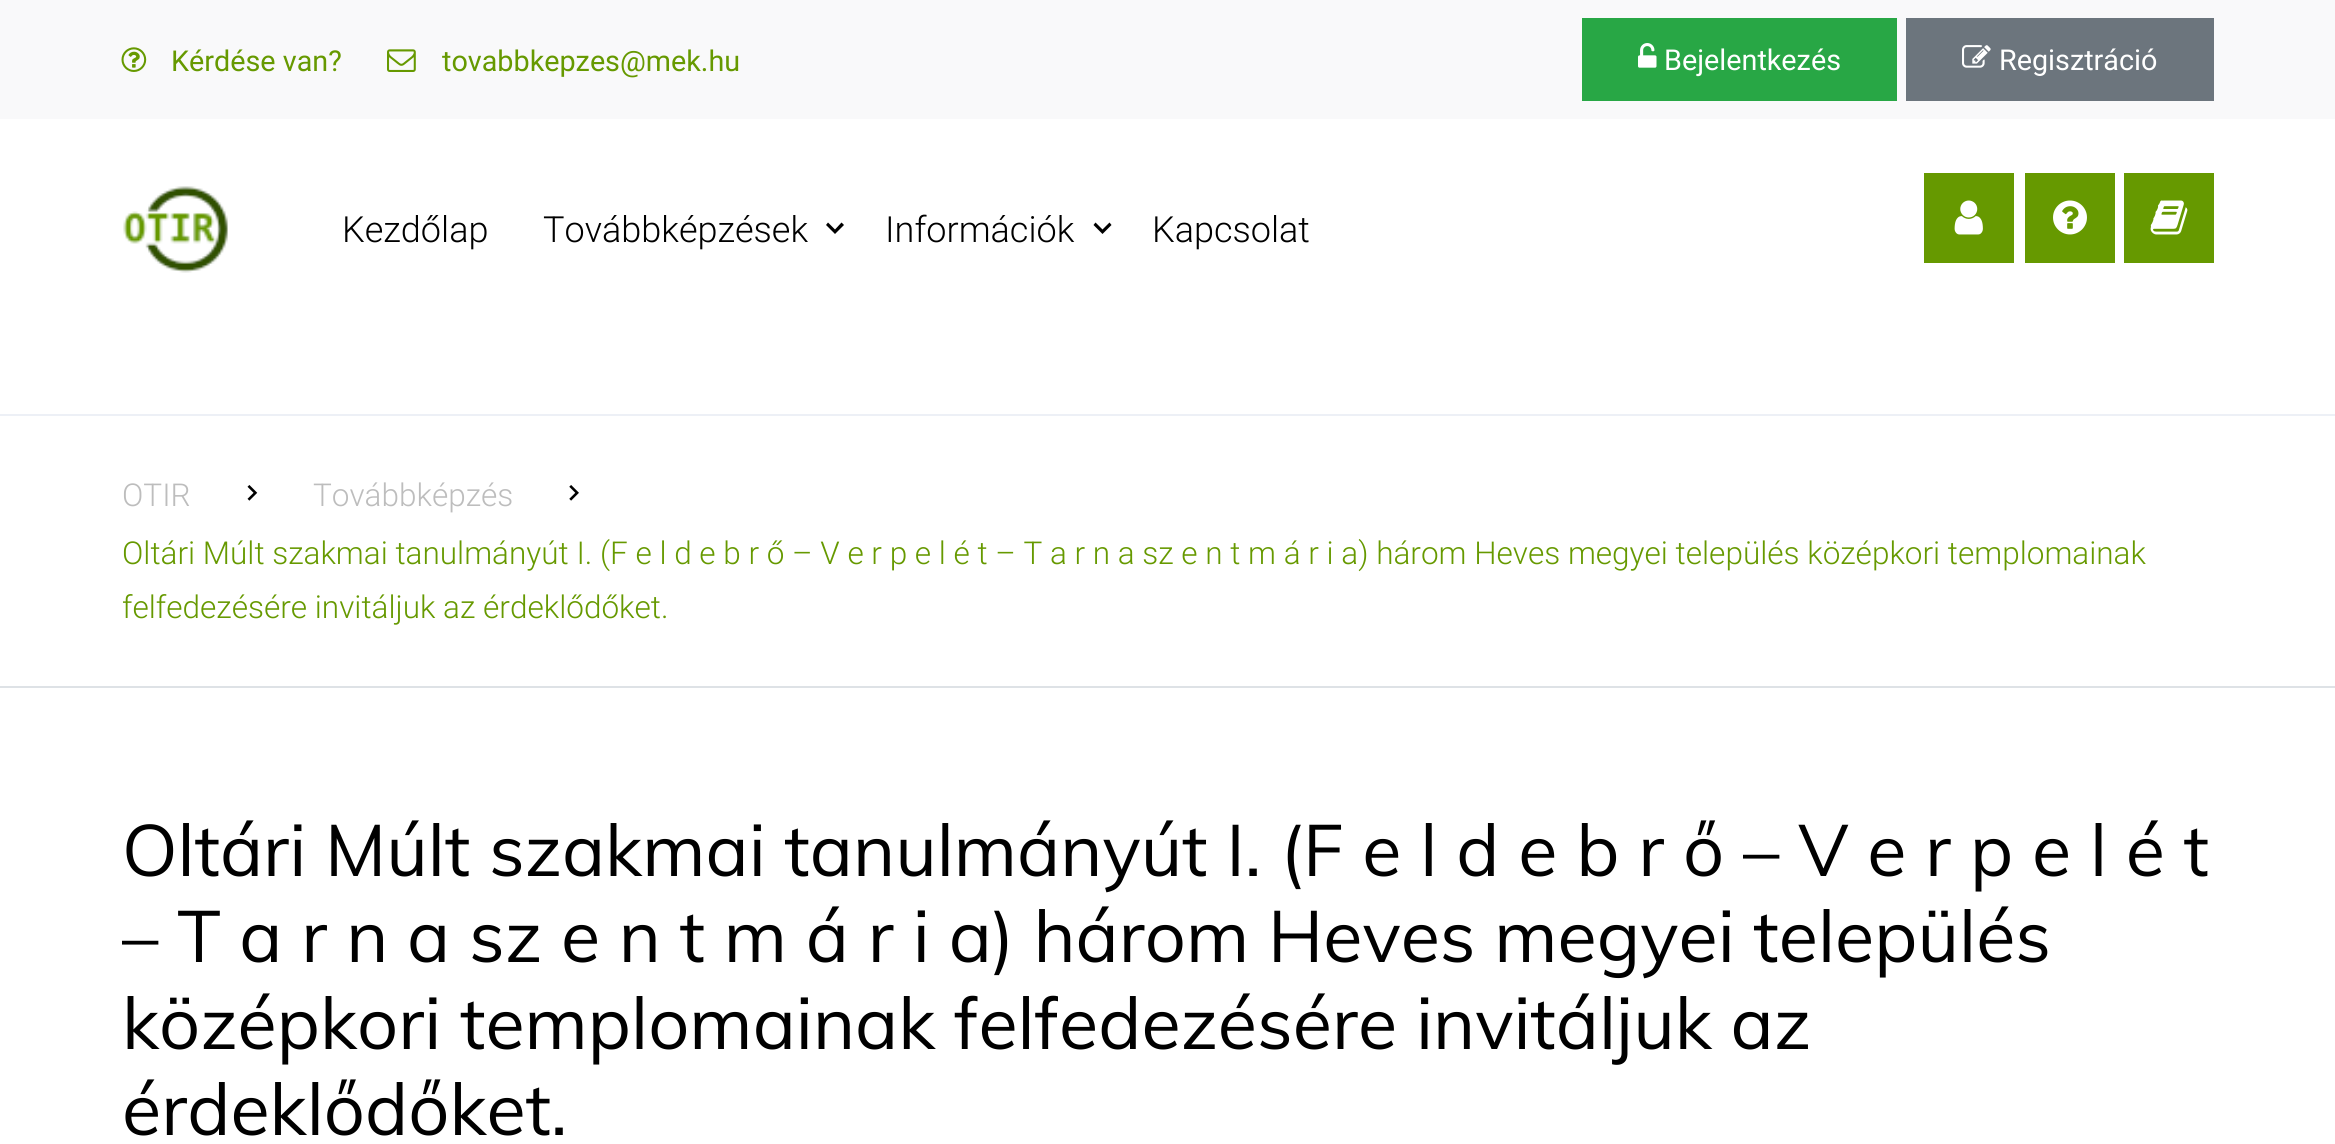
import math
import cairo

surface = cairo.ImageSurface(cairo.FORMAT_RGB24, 2335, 1144)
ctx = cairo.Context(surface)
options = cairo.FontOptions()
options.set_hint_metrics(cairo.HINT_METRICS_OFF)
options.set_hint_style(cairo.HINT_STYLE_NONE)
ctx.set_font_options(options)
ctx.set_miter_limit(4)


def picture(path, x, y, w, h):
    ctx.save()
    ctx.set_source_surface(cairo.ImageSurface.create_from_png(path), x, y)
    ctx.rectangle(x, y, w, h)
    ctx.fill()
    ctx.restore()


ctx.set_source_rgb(1, 1, 1)
ctx.paint()
ctx.set_source_rgb(0.973, 0.976, 0.98)
ctx.rectangle(0, 0, 2335, 119)
ctx.fill()
picture("img1.png", 121, 47, 26, 25)
ctx.select_font_face("Roboto")
ctx.set_font_size(28.75)
ctx.set_source_rgb(0.4, 0.6, 0)
ctx.move_to(171, 71)
ctx.show_text("Kérdése van?")
picture("img2.png", 387, 49, 29, 23)
ctx.move_to(442, 71)
ctx.show_text("tovabbkepzes@mek.hu")
ctx.set_source_rgb(0.157, 0.655, 0.271)
ctx.rectangle(1582, 18, 315, 83)
ctx.fill()
picture("img3.png", 1638, 43, 19, 25)
ctx.set_source_rgb(1, 1, 1)
ctx.move_to(1664, 70)
ctx.show_text("Bejelentkezés")
ctx.set_source_rgb(0.424, 0.459, 0.49)
ctx.rectangle(1906, 18, 308, 83)
ctx.fill()
picture("img4.png", 1962, 45, 29, 23)
ctx.set_source_rgb(1, 1, 1)
ctx.move_to(1999, 70)
ctx.show_text("Regisztráció")
picture("img5.png", 123, 186, 105, 87)
ctx.select_font_face("Roboto Light")
ctx.set_font_size(36)
ctx.set_source_rgb(0, 0, 0)
ctx.move_to(342, 242)
ctx.show_text("Kezdőlap")
ctx.move_to(543, 242)
ctx.show_text("Továbbképzések")
ctx.new_path()
ctx.move_to(828, 222.5)
ctx.line_to(835, 229.5)
ctx.line_to(841.5, 222.5)
ctx.line_to(844, 225)
ctx.line_to(835, 234)
ctx.line_to(826, 225)
ctx.close_path()
ctx.fill()
ctx.move_to(885, 242)
ctx.show_text("Információk")
ctx.new_path()
ctx.move_to(1095.5, 222.5)
ctx.line_to(1102.5, 229.5)
ctx.line_to(1109.5, 222.5)
ctx.line_to(1111.5, 225)
ctx.line_to(1102.5, 234)
ctx.line_to(1093.5, 225)
ctx.close_path()
ctx.fill()
ctx.move_to(1152, 242)
ctx.show_text("Kapcsolat")
ctx.set_source_rgb(0.4, 0.6, 0)
ctx.rectangle(1924, 173, 90, 90)
ctx.fill()
picture("img6.png", 1954, 200, 29, 35)
ctx.rectangle(2025, 173, 90, 90)
ctx.fill()
picture("img7.png", 2053, 200, 34, 35)
ctx.rectangle(2124, 173, 90, 90)
ctx.fill()
picture("img8.png", 2150, 200, 38, 35)
ctx.set_source_rgb(0.929, 0.941, 0.961)
ctx.rectangle(0, 414, 2335, 2)
ctx.fill()
ctx.set_source_rgb(0.871, 0.886, 0.902)
ctx.rectangle(0, 686, 2335, 2)
ctx.fill()
ctx.set_font_size(31.5)
ctx.set_source_rgb(0.741, 0.741, 0.741)
ctx.move_to(122, 506)
ctx.show_text("OTIR")
picture("img9.png", 247, 485, 11, 16)
ctx.move_to(313, 506)
ctx.show_text("Továbbképzés")
picture("img10.png", 569, 485, 10, 16)
ctx.set_source_rgb(0.4, 0.6, 0)
ctx.move_to(122, 564)
ctx.show_text("Oltári Múlt szakmai tanulmányút I. (F e l d e b r ő – V e r p e l é t – T a r n a sz e n t m á r i a) három Heves megyei település középkori templomainak")
ctx.move_to(122, 618)
ctx.show_text("felfedezésére invitáljuk az érdeklődőket.")
ctx.select_font_face("Muli")
ctx.set_font_size(72)
ctx.set_source_rgb(0, 0, 0)
ctx.move_to(122, 876)
ctx.show_text("Oltári Múlt szakmai tanulmányút I. (F e l d e b r ő – V e r p e l é t")
ctx.move_to(122, 962)
ctx.show_text("– T a r n a sz e n t m á r i a) három Heves megyei település")
ctx.move_to(122, 1049)
ctx.show_text("középkori templomainak felfedezésére invitáljuk az")
ctx.move_to(122, 1135)
ctx.show_text("érdeklődőket.")
surface.write_to_png("page.png")
